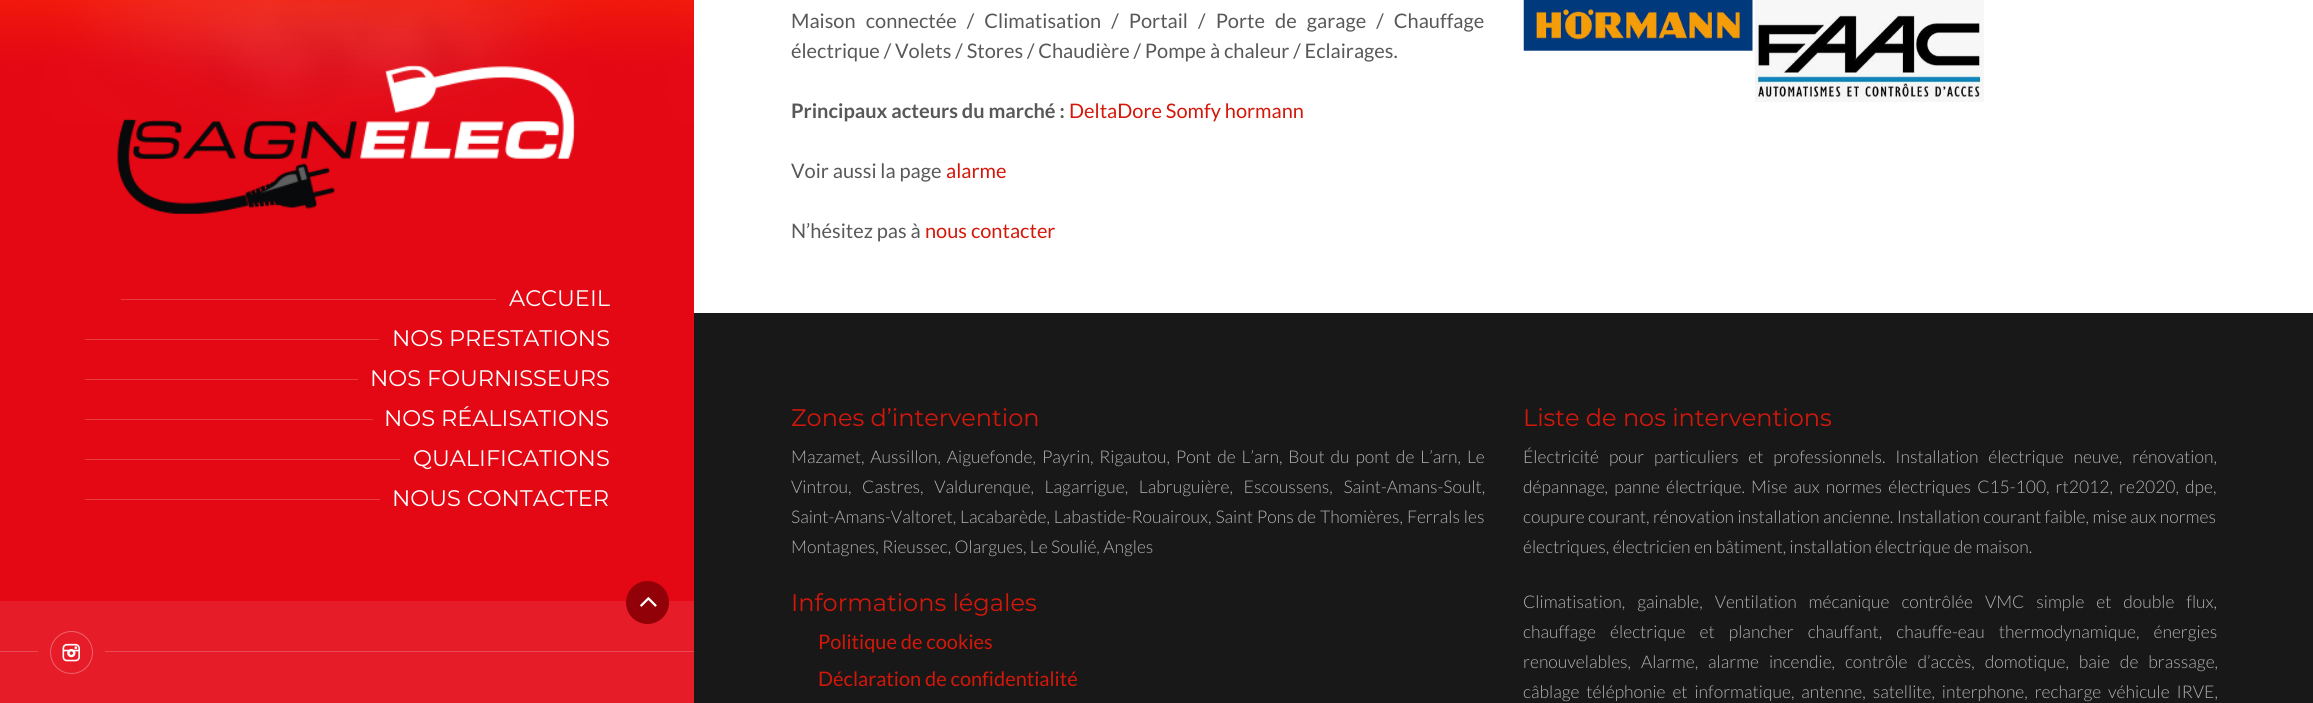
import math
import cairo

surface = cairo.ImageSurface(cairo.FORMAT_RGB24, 2313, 703)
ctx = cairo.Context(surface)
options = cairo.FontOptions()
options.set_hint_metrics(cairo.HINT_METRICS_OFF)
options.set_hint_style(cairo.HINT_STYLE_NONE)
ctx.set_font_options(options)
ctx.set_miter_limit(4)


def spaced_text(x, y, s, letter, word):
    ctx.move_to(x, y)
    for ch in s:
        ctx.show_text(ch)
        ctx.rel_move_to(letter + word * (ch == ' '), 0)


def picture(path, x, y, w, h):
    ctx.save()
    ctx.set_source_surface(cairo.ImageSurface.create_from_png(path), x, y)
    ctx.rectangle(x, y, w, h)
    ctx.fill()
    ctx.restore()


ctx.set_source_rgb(1, 1, 1)
ctx.paint()
ctx.set_source_rgb(0.894, 0.035, 0.082)
ctx.rectangle(0, 0, 694, 601)
ctx.fill()
picture("img1.png", 0, 0, 694, 125)
picture("img2.png", 117, 65, 458, 150)
ctx.set_source_rgb(0.914, 0.227, 0.267)
ctx.rectangle(121, 299, 375, 1)
ctx.fill()
ctx.select_font_face("Montserrat")
ctx.set_font_size(22.5)
ctx.set_source_rgb(1, 1, 1)
ctx.move_to(509, 306)
ctx.show_text("ACCUEIL")
ctx.set_source_rgb(0.914, 0.227, 0.267)
ctx.rectangle(85, 339, 294, 1)
ctx.fill()
ctx.set_source_rgb(1, 1, 1)
ctx.move_to(392, 346)
ctx.show_text("NOS PRESTATIONS")
ctx.set_source_rgb(0.914, 0.227, 0.267)
ctx.rectangle(85, 379, 273, 1)
ctx.fill()
ctx.set_source_rgb(1, 1, 1)
ctx.move_to(370, 386)
ctx.show_text("NOS FOURNISSEURS")
ctx.set_source_rgb(0.914, 0.227, 0.267)
ctx.rectangle(85, 419, 288, 1)
ctx.fill()
ctx.set_source_rgb(1, 1, 1)
ctx.move_to(384, 426)
ctx.show_text("NOS RÉALISATIONS")
ctx.set_source_rgb(0.914, 0.227, 0.267)
ctx.rectangle(85, 459, 315, 1)
ctx.fill()
ctx.set_source_rgb(1, 1, 1)
ctx.move_to(413, 466)
ctx.show_text("QUALIFICATIONS")
ctx.set_source_rgb(0.914, 0.227, 0.267)
ctx.rectangle(85, 499, 295, 1)
ctx.fill()
ctx.set_source_rgb(1, 1, 1)
ctx.move_to(392, 506)
ctx.show_text("NOUS CONTACTER")
ctx.set_source_rgb(0.902, 0.114, 0.157)
ctx.rectangle(0, 601, 694, 102)
ctx.fill()
ctx.set_source_rgb(0.573, 0, 0.035)
ctx.arc(647.5, 602.5, 21.5, 0, 2 * math.pi)
ctx.fill()
picture("img3.png", 640, 597, 17, 10)
ctx.set_source_rgb(0.922, 0.29, 0.325)
ctx.rectangle(0, 651, 38, 1)
ctx.fill()
ctx.arc(71.5, 652.5, 21, 0, 2 * math.pi)
ctx.set_source_rgb(0.933, 0.38, 0.412)
ctx.set_line_width(1)
ctx.stroke()
picture("img4.png", 62, 643, 18, 19)
ctx.set_source_rgb(0.922, 0.29, 0.325)
ctx.rectangle(105, 651, 589, 1)
ctx.fill()
ctx.select_font_face("Lato")
ctx.set_font_size(20)
ctx.set_source_rgb(0.345, 0.345, 0.345)
spaced_text(791, 28, "Maison connectée / Climatisation / Portail / Porte de garage / Chauffage", 0, 6.25)
ctx.move_to(791, 58)
ctx.show_text("électrique / Volets / Stores / Chaudière / Pompe à chaleur / Eclairages.")
ctx.select_font_face("Lato", cairo.FONT_SLANT_NORMAL, cairo.FONT_WEIGHT_BOLD)
ctx.move_to(791, 118)
ctx.show_text("Principaux acteurs du marché :")
ctx.select_font_face("Lato")
ctx.set_source_rgb(0.827, 0.09, 0.039)
ctx.move_to(1069, 118)
ctx.show_text("DeltaDore Somfy hormann")
ctx.set_source_rgb(0.345, 0.345, 0.345)
ctx.move_to(791, 178)
ctx.show_text("Voir aussi la page")
ctx.set_source_rgb(0.827, 0.09, 0.039)
ctx.move_to(946, 178)
ctx.show_text("alarme")
ctx.set_source_rgb(0.345, 0.345, 0.345)
ctx.move_to(791, 238)
ctx.show_text("N’hésitez pas à")
ctx.set_source_rgb(0.827, 0.09, 0.039)
ctx.move_to(925, 238)
ctx.show_text("nous contacter")
picture("img5.png", 1523, 0, 230, 51)
picture("img6.png", 1755, 0, 229, 102)
ctx.set_source_rgb(0.094, 0.094, 0.094)
ctx.rectangle(694, 313, 1619, 390)
ctx.fill()
ctx.select_font_face("Montserrat")
ctx.set_font_size(24)
ctx.set_source_rgb(0.827, 0.09, 0.039)
ctx.move_to(791, 426)
ctx.show_text("Zones d’intervention")
ctx.select_font_face("Lato Light")
ctx.set_font_size(17.5)
ctx.set_source_rgb(0.694, 0.694, 0.694)
spaced_text(791, 463, "Mazamet, Aussillon, Aiguefonde, Payrin, Rigautou, Pont de L’arn, Bout du pont de L’arn, Le", 0, 2.5)
spaced_text(791, 493, "Vintrou, Castres, Valdurenque, Lagarrigue, Labruguière, Escoussens, Saint-Amans-Soult,", 0, 7.25)
spaced_text(791, 523, "Saint-Amans-Valtoret, Lacabarède, Labastide-Rouairoux, Saint Pons de Thomières, Ferrals les", 0, 0.5)
ctx.move_to(791, 553)
ctx.show_text("Montagnes, Rieussec, Olargues, Le Soulié, Angles")
ctx.select_font_face("Montserrat")
ctx.set_font_size(24)
ctx.set_source_rgb(0.827, 0.09, 0.039)
ctx.move_to(1523, 426)
ctx.show_text("Liste de nos interventions")
ctx.select_font_face("Lato Light")
ctx.set_font_size(17.5)
ctx.set_source_rgb(0.694, 0.694, 0.694)
spaced_text(1523, 463, "Électricité pour particuliers et professionnels. Installation électrique neuve, rénovation,", 0, 6.5)
spaced_text(1523, 493, "dépannage, panne électrique. Mise aux normes électriques C15-100, rt2012, re2020, dpe,", 0, 2.75)
ctx.move_to(1523, 523)
ctx.show_text("coupure courant, rénovation installation ancienne. Installation courant faible, mise aux normes")
ctx.move_to(1523, 553)
ctx.show_text("électriques, électricien en bâtiment, installation électrique de maison.")
ctx.select_font_face("Montserrat")
ctx.set_font_size(24)
ctx.set_source_rgb(0.827, 0.09, 0.039)
ctx.move_to(791, 611)
ctx.show_text("Informations légales")
ctx.select_font_face("Lato")
ctx.set_font_size(20)
ctx.move_to(818, 649)
ctx.show_text("Politique de cookies")
ctx.move_to(818, 686)
ctx.show_text("Déclaration de confidentialité")
ctx.select_font_face("Lato Light")
ctx.set_font_size(17.5)
ctx.set_source_rgb(0.694, 0.694, 0.694)
spaced_text(1523, 608, "Climatisation, gainable, Ventilation mécanique contrôlée VMC simple et double flux,", 0, 8.5)
spaced_text(1523, 638, "chauffage électrique et plancher chauffant, chauffe-eau thermodynamique, énergies", 0, 10.75)
spaced_text(1523, 668, "renouvelables, Alarme, alarme incendie, contrôle d’accès, domotique, baie de brassage,", 0, 6.5)
spaced_text(1523, 698, "câblage téléphonie et informatique, antenne, satellite, interphone, recharge véhicule IRVE,", 0, 3.5)
surface.write_to_png("page.png")
